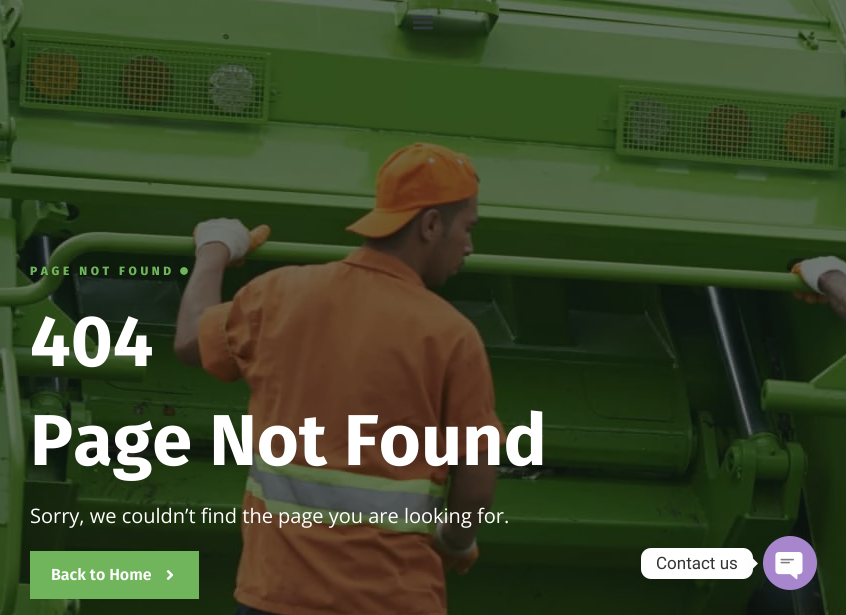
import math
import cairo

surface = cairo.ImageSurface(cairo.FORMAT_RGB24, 846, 615)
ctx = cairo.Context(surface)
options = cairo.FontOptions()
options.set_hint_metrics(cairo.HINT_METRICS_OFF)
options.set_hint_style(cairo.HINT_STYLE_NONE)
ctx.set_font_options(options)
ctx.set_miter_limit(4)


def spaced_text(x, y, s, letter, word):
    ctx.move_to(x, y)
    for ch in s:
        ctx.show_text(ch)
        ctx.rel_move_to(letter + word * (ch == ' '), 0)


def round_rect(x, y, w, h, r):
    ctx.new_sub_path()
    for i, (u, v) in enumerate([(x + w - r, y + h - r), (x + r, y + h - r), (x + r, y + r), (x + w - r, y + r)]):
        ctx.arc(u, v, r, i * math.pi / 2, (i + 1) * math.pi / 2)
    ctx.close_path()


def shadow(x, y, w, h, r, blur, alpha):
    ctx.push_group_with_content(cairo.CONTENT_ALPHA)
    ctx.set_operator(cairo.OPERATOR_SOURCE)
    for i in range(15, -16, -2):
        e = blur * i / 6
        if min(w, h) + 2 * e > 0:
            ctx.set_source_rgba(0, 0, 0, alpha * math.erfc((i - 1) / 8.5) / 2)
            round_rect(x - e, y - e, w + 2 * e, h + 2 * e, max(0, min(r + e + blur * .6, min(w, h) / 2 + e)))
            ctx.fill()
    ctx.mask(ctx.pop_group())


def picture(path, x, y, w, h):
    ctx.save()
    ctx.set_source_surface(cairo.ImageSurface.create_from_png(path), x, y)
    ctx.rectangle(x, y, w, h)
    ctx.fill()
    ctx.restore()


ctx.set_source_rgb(1, 1, 1)
ctx.paint()
picture("img2.png", 0, 0, 846, 615)
ctx.set_source_rgba(0, 0, 0, 0.05)
ctx.rectangle(407, 5, 33, 33)
ctx.fill()
picture("img1.png", 413, 15, 20, 15)
ctx.select_font_face("Fira Sans ExtraBold")
ctx.set_font_size(12)
ctx.set_source_rgb(0.439, 0.71, 0.361)
spaced_text(30, 275, "PAGE NOT FOUND", 3.6, 0)
picture("img3.png", 180, 267, 8, 8)
ctx.select_font_face("Fira Sans", cairo.FONT_SLANT_NORMAL, cairo.FONT_WEIGHT_BOLD)
ctx.set_font_size(72)
ctx.set_source_rgb(1, 1, 1)
ctx.move_to(30, 366)
ctx.show_text("404")
ctx.move_to(30, 465)
ctx.show_text("Page Not Found")
ctx.select_font_face("Open Sans")
ctx.set_font_size(20)
ctx.move_to(30, 523)
ctx.show_text("Sorry, we couldn’t find the page you are looking for.")
ctx.set_source_rgb(0.439, 0.71, 0.361)
ctx.rectangle(30, 551, 169, 48)
ctx.fill()
ctx.select_font_face("Fira Sans SemiBold")
ctx.set_font_size(16)
ctx.set_source_rgb(1, 1, 1)
ctx.move_to(51, 580)
ctx.show_text("Back to Home")
picture("img4.png", 166, 570, 8, 10)
round_rect(641, 548, 112, 31, 10)
ctx.fill()
ctx.select_font_face("Roboto")
ctx.set_font_size(17)
ctx.set_source_rgb(0.2, 0.2, 0.2)
ctx.move_to(656, 569)
ctx.show_text("Contact us")
ctx.set_source_rgb(1, 1, 1)
ctx.new_path()
ctx.move_to(753, 568.5)
ctx.line_to(753, 558.5)
ctx.line_to(758, 563.5)
ctx.close_path()
ctx.fill()
ctx.set_source_rgb(0.286, 0.408, 0.494)
shadow(763, 552, 54, 54, 27, 12, 0.16)
picture("img5.png", 763, 536, 54, 54)
surface.write_to_png("page.png")
